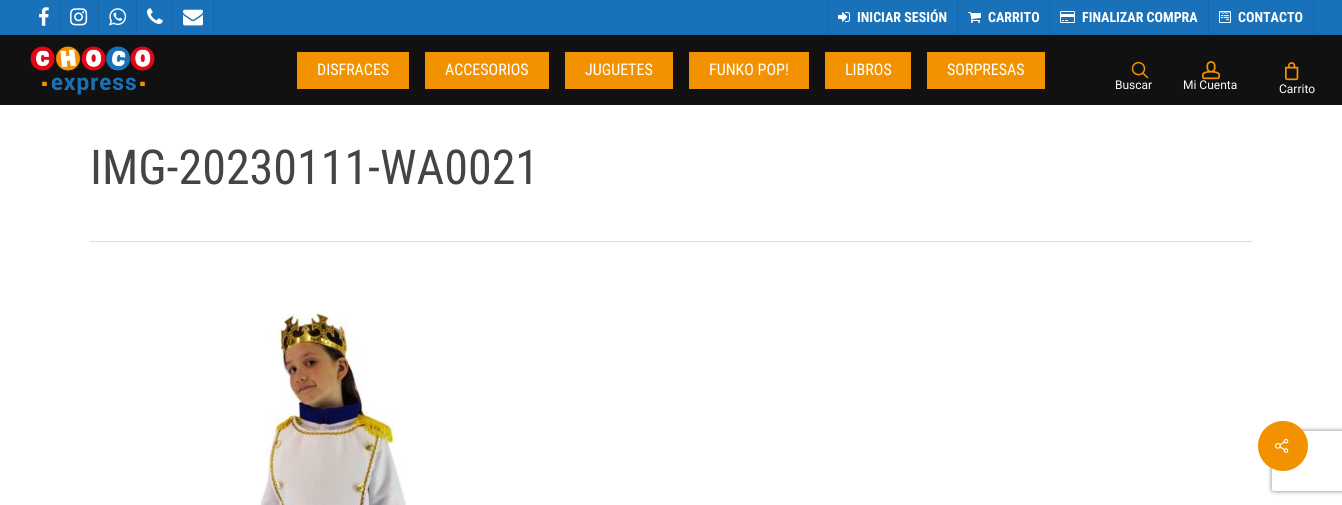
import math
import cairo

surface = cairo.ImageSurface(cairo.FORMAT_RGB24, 1342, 505)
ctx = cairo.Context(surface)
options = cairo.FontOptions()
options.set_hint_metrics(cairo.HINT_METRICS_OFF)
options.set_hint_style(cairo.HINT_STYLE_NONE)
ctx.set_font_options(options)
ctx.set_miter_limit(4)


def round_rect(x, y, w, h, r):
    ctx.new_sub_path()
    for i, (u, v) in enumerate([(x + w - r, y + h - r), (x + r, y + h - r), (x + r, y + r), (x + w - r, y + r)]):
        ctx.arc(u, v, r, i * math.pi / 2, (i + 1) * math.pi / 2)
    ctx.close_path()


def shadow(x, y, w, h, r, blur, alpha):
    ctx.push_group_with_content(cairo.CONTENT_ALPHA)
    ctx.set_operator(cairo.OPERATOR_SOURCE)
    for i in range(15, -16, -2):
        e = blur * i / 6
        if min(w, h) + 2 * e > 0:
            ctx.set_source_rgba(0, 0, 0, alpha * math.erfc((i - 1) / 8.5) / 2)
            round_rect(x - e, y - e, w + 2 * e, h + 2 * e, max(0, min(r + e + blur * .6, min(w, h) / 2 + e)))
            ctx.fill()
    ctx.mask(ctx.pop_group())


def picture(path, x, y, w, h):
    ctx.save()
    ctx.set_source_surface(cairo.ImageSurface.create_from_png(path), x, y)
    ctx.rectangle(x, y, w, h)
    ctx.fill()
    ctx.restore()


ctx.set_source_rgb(1, 1, 1)
ctx.paint()
ctx.set_source_rgb(0.067, 0.067, 0.067)
ctx.rectangle(0, 35, 1342, 70)
ctx.fill()
ctx.set_source_rgb(0.098, 0.447, 0.725)
ctx.rectangle(0, 0, 1342, 34)
ctx.fill()
ctx.set_source_rgb(0.09, 0.404, 0.655)
ctx.rectangle(0, 34, 1342, 1)
ctx.fill()
picture("img1.png", 39, 7, 10, 19)
ctx.rectangle(59, 0, 1, 32)
ctx.fill()
picture("img2.png", 70, 8, 18, 18)
ctx.rectangle(98, 0, 1, 32)
ctx.fill()
picture("img3.png", 109, 8, 18, 18)
ctx.rectangle(136, 0, 1, 32)
ctx.fill()
picture("img4.png", 147, 8, 16, 16)
ctx.rectangle(213, 0, 1, 32)
ctx.fill()
ctx.rectangle(172, 0, 1, 32)
ctx.fill()
picture("img5.png", 183, 9, 20, 17)
ctx.rectangle(827, 0, 1, 34)
ctx.fill()
picture("img6.png", 838, 12, 12, 10)
ctx.select_font_face("Roboto Condensed", cairo.FONT_SLANT_NORMAL, cairo.FONT_WEIGHT_BOLD)
ctx.set_font_size(14)
ctx.set_source_rgb(1, 1, 1)
ctx.move_to(857, 22)
ctx.show_text("INICIAR SESIÓN")
ctx.set_source_rgb(0.09, 0.404, 0.655)
ctx.rectangle(957, 0, 1, 34)
ctx.fill()
picture("img7.png", 968, 12, 13, 11)
ctx.set_source_rgb(1, 1, 1)
ctx.move_to(988, 22)
ctx.show_text("CARRITO")
ctx.set_source_rgb(0.09, 0.404, 0.655)
ctx.rectangle(1049, 0, 1, 34)
ctx.fill()
picture("img8.png", 1060, 11, 15, 12)
ctx.set_source_rgb(1, 1, 1)
ctx.move_to(1082, 22)
ctx.show_text("FINALIZAR COMPRA")
ctx.set_source_rgb(0.09, 0.404, 0.655)
ctx.rectangle(1313, 0, 1, 34)
ctx.fill()
ctx.rectangle(1208, 0, 1, 34)
ctx.fill()
picture("img9.png", 1219, 11, 12, 12)
ctx.set_source_rgb(1, 1, 1)
ctx.move_to(1238, 22)
ctx.show_text("CONTACTO")
picture("img10.png", 30, 46, 125, 49)
ctx.set_source_rgb(0.953, 0.573, 0)
ctx.rectangle(297, 52, 112, 37)
ctx.fill()
ctx.select_font_face("Roboto Condensed")
ctx.set_font_size(16)
ctx.set_source_rgb(1, 1, 1)
ctx.move_to(317, 75)
ctx.show_text("DISFRACES")
ctx.set_source_rgb(0.953, 0.573, 0)
ctx.rectangle(425, 52, 124, 37)
ctx.fill()
ctx.set_source_rgb(1, 1, 1)
ctx.move_to(445, 75)
ctx.show_text("ACCESORIOS")
ctx.set_source_rgb(0.953, 0.573, 0)
ctx.rectangle(565, 52, 108, 37)
ctx.fill()
ctx.set_source_rgb(1, 1, 1)
ctx.move_to(585, 75)
ctx.show_text("JUGUETES")
ctx.set_source_rgb(0.953, 0.573, 0)
ctx.rectangle(689, 52, 120, 37)
ctx.fill()
ctx.set_source_rgb(1, 1, 1)
ctx.move_to(709, 75)
ctx.show_text("FUNKO POP!")
ctx.set_source_rgb(0.953, 0.573, 0)
ctx.rectangle(825, 52, 86, 37)
ctx.fill()
ctx.set_source_rgb(1, 1, 1)
ctx.move_to(845, 75)
ctx.show_text("LIBROS")
ctx.set_source_rgb(0.953, 0.573, 0)
ctx.rectangle(927, 52, 118, 37)
ctx.fill()
ctx.set_source_rgb(1, 1, 1)
ctx.move_to(947, 75)
ctx.show_text("SORPRESAS")
picture("img11.png", 1131, 61, 18, 18)
ctx.select_font_face("Roboto")
ctx.set_font_size(12)
ctx.move_to(1115, 89)
ctx.show_text("Buscar")
picture("img12.png", 1202, 61, 18, 19)
ctx.move_to(1183, 89)
ctx.show_text("Mi Cuenta")
picture("img13.png", 1285, 62, 14, 19)
ctx.move_to(1279, 93)
ctx.show_text("Carrito")
ctx.set_source_rgb(0.867, 0.867, 0.867)
ctx.rectangle(90, 241, 1162, 1)
ctx.fill()
ctx.select_font_face("Roboto Condensed")
ctx.set_font_size(48)
ctx.set_source_rgb(0.267, 0.267, 0.267)
ctx.move_to(90, 184)
ctx.show_text("IMG-20230111-WA0021")
picture("img14.png", 258, 312, 148, 193)
ctx.save()
ctx.set_fill_rule(cairo.FILL_RULE_EVEN_ODD)
ctx.new_path()
ctx.move_to(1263, 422)
ctx.line_to(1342, 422)
ctx.line_to(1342, 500)
ctx.line_to(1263, 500)
ctx.close_path()
ctx.move_to(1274, 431)
ctx.line_to(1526, 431)
ctx.curve_to(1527, 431, 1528, 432, 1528, 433)
ctx.line_to(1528, 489)
ctx.curve_to(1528, 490, 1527, 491, 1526, 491)
ctx.line_to(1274, 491)
ctx.curve_to(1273, 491, 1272, 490, 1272, 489)
ctx.line_to(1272, 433)
ctx.curve_to(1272, 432, 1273, 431, 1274, 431)
ctx.close_path()
ctx.clip()
ctx.set_source_rgb(0.502, 0.502, 0.502)
shadow(1272, 431, 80, 60, 2, 2.5, 1)
ctx.restore()
ctx.set_source_rgb(0.953, 0.573, 0)
ctx.arc(1283, 446, 25, 0, 2 * math.pi)
ctx.fill()
picture("img15.png", 1275, 438, 14, 15)
surface.write_to_png("page.png")
